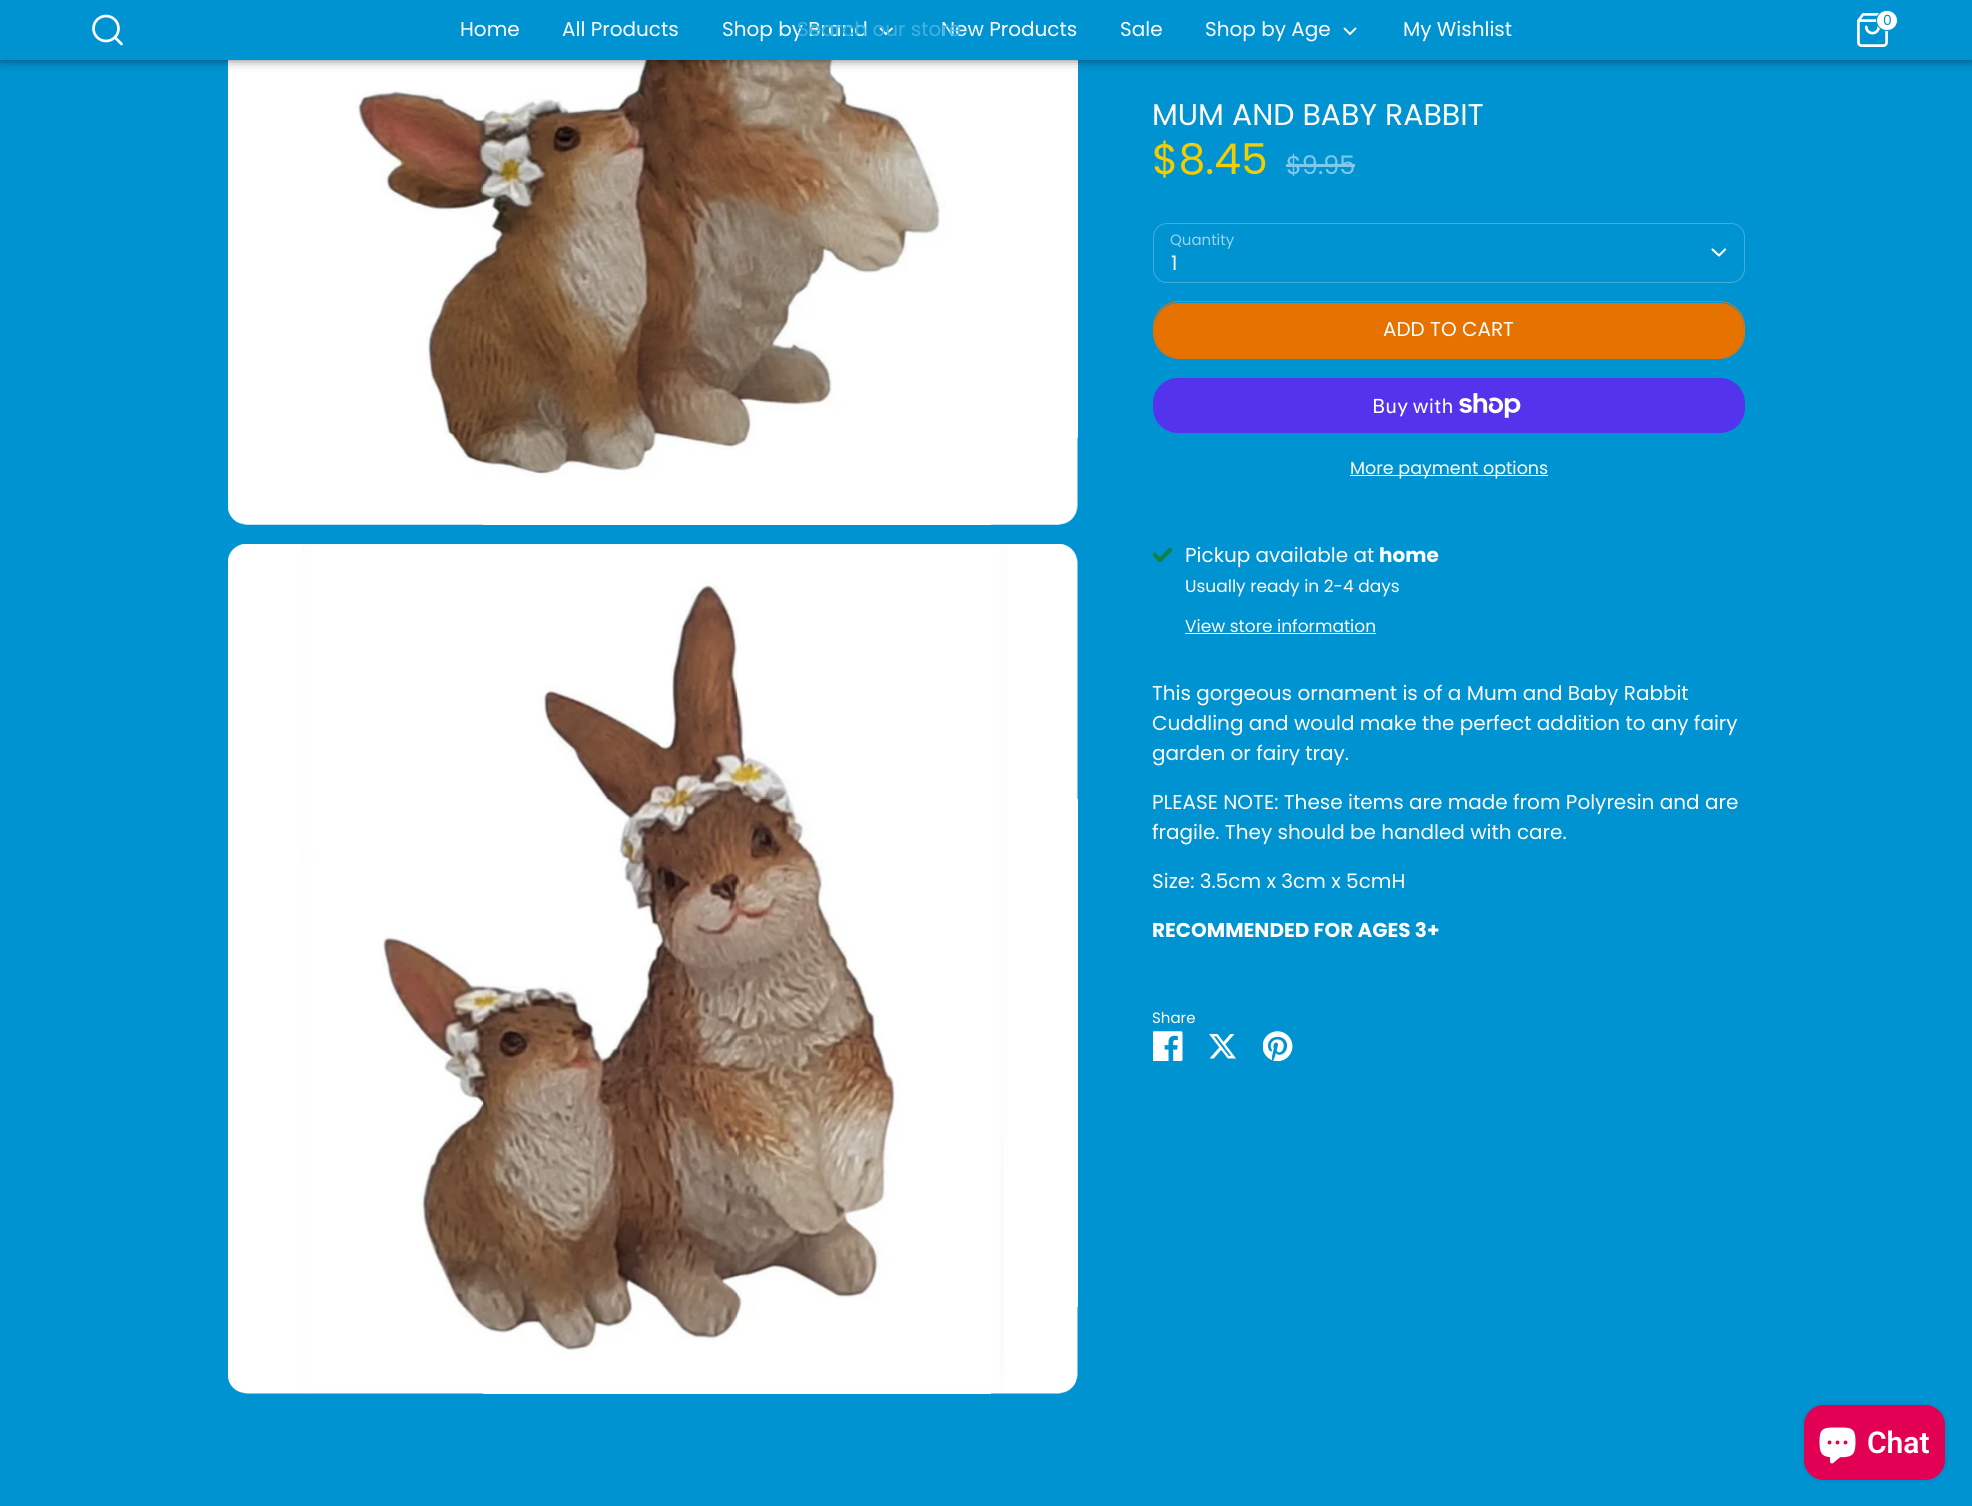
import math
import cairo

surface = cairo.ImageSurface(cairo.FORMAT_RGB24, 1972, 1506)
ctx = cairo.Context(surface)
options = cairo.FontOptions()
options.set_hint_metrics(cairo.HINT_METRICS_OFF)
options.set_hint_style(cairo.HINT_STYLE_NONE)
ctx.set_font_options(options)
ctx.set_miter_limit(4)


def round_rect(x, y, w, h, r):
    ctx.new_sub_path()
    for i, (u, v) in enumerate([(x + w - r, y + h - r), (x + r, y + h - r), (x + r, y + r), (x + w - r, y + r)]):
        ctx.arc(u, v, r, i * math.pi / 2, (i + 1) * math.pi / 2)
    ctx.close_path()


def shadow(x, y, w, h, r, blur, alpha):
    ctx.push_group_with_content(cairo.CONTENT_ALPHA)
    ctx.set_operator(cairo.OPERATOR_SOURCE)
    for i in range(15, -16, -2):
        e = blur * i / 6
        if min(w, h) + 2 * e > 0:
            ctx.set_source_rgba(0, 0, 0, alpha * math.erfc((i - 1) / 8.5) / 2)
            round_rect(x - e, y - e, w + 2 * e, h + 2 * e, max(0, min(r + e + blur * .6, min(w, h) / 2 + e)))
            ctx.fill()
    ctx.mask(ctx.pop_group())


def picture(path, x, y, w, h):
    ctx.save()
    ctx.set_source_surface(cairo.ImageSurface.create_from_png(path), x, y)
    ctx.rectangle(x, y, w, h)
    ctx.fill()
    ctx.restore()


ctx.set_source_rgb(0, 0.576, 0.824)
ctx.paint()
picture("img2.png", 228, 60, 850, 465)
ctx.set_source_rgb(0, 0, 0)
shadow(0, -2, 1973, 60, 0, 6, 0.75)
ctx.set_source_rgb(0, 0.576, 0.824)
ctx.rectangle(0, 0, 1972, 60)
ctx.fill()
ctx.arc(106, 28.5, 12.5, 0, 2 * math.pi)
ctx.set_source_rgb(1, 1, 1)
ctx.set_line_width(2.7)
ctx.stroke()
ctx.new_path()
ctx.move_to(121.5, 44)
ctx.line_to(115, 37.5)
ctx.set_line_cap(cairo.LINE_CAP_ROUND)
ctx.set_line_join(cairo.LINE_JOIN_ROUND)
ctx.stroke()
picture("img1.png", 1857, 13, 31, 34)
round_rect(1876.5, 10.5, 21, 20, 10)
ctx.fill_preserve()
ctx.set_source_rgb(0, 0.576, 0.824)
ctx.set_line_width(1)
ctx.set_line_cap(cairo.LINE_CAP_BUTT)
ctx.set_line_join(cairo.LINE_JOIN_MITER)
ctx.stroke()
ctx.select_font_face("Poppins")
ctx.set_font_size(14)
ctx.move_to(1883, 25)
ctx.show_text("0")
ctx.set_font_size(20)
ctx.set_source_rgb(1, 1, 1)
ctx.move_to(722, 36)
ctx.show_text("Shop by Brand")
ctx.new_path()
ctx.move_to(880.5, 28.5)
ctx.line_to(886, 34)
ctx.line_to(892, 28.5)
ctx.set_line_width(1.9)
ctx.set_line_cap(cairo.LINE_CAP_ROUND)
ctx.stroke()
ctx.move_to(941, 36)
ctx.show_text("New Products")
ctx.set_source_rgb(0.267, 0.69, 0.871)
ctx.move_to(797, 36)
ctx.show_text("Search our store")
ctx.new_path()
ctx.move_to(775.5, 44)
ctx.line_to(768.5, 37.5)
ctx.set_source_rgb(0, 0.576, 0.824)
ctx.set_line_width(2.7)
ctx.set_line_join(cairo.LINE_JOIN_ROUND)
ctx.stroke()
ctx.set_source_rgb(1, 1, 1)
ctx.move_to(460, 36)
ctx.show_text("Home")
ctx.move_to(562, 36)
ctx.show_text("All Products")
ctx.move_to(1120, 36)
ctx.show_text("Sale")
ctx.move_to(1205, 36)
ctx.show_text("Shop by Age")
ctx.new_path()
ctx.move_to(1344.5, 28.5)
ctx.line_to(1350, 34)
ctx.line_to(1355.5, 28.5)
ctx.set_line_width(1.9)
ctx.set_line_join(cairo.LINE_JOIN_MITER)
ctx.stroke()
ctx.move_to(1403, 36)
ctx.show_text("My Wishlist")
picture("img3.png", 228, 544, 850, 850)
ctx.set_font_size(30)
ctx.move_to(1152, 125)
ctx.show_text("MUM AND BABY RABBIT")
ctx.set_font_size(42.5)
ctx.set_source_rgb(0.949, 0.808, 0)
ctx.move_to(1152, 174)
ctx.show_text("$8.45")
ctx.set_font_size(25.5)
ctx.set_source_rgb(0.502, 0.788, 0.914)
ctx.move_to(1286, 174)
ctx.show_text("$9.95")
ctx.rectangle(1286, 164, 69, 3)
ctx.fill()
ctx.set_font_size(15)
ctx.set_source_rgb(0.6, 0.831, 0.929)
ctx.move_to(1170, 245)
ctx.show_text("Quantity")
round_rect(1153.5, 223.5, 591, 59, 13.5)
ctx.set_source_rgb(0.251, 0.682, 0.867)
ctx.set_line_width(1)
ctx.set_line_cap(cairo.LINE_CAP_BUTT)
ctx.stroke()
ctx.new_path()
ctx.move_to(1712.5, 249.5)
ctx.line_to(1719, 255.5)
ctx.line_to(1725, 249.5)
ctx.set_source_rgb(1, 1, 1)
ctx.set_line_width(2.1)
ctx.set_line_cap(cairo.LINE_CAP_ROUND)
ctx.set_line_join(cairo.LINE_JOIN_ROUND)
ctx.stroke()
ctx.set_font_size(20)
ctx.move_to(1171, 270)
ctx.show_text("1")
round_rect(1153.5, 301.5, 591, 57, 25.5)
ctx.set_source_rgb(0.902, 0.447, 0)
ctx.set_line_width(1)
ctx.set_line_cap(cairo.LINE_CAP_BUTT)
ctx.set_line_join(cairo.LINE_JOIN_MITER)
ctx.stroke()
round_rect(1154, 303, 590, 55, 25)
ctx.fill()
ctx.set_source_rgb(1, 1, 1)
ctx.move_to(1383, 336)
ctx.show_text("ADD TO CART")
ctx.set_source_rgb(0.329, 0.2, 0.922)
round_rect(1153, 378, 592, 55, 25)
ctx.fill()
ctx.select_font_face("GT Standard")
ctx.set_source_rgb(1, 1, 1)
ctx.move_to(1372, 413)
ctx.show_text("Buy with")
picture("img4.png", 1459, 393, 62, 25)
ctx.rectangle(1350, 475, 198, 1)
ctx.fill()
ctx.select_font_face("Poppins")
ctx.set_font_size(17.5)
ctx.move_to(1350, 474)
ctx.show_text("More payment options")
picture("img5.png", 1153, 547, 20, 16)
ctx.set_font_size(20)
ctx.move_to(1185, 562)
ctx.show_text("Pickup available at")
ctx.select_font_face("Poppins", cairo.FONT_SLANT_NORMAL, cairo.FONT_WEIGHT_BOLD)
ctx.move_to(1379, 562)
ctx.show_text("home")
ctx.select_font_face("Poppins")
ctx.set_font_size(17)
ctx.move_to(1185, 592)
ctx.show_text("Usually ready in 2-4 days")
ctx.move_to(1185, 632)
ctx.show_text("View store information")
ctx.rectangle(1185, 633, 191, 1)
ctx.fill()
ctx.set_font_size(20)
ctx.move_to(1152, 700)
ctx.show_text("This gorgeous ornament is of a Mum and Baby Rabbit")
ctx.move_to(1152, 730)
ctx.show_text("Cuddling and would make the perfect addition to any fairy")
ctx.move_to(1152, 760)
ctx.show_text("garden or fairy tray.")
ctx.move_to(1152, 809)
ctx.show_text("PLEASE NOTE: These items are made from Polyresin and are")
ctx.move_to(1152, 839)
ctx.show_text("fragile. They should be handled with care.")
ctx.move_to(1152, 888)
ctx.show_text("Size: 3.5cm x 3cm x 5cmH")
ctx.select_font_face("Poppins", cairo.FONT_SLANT_NORMAL, cairo.FONT_WEIGHT_BOLD)
ctx.move_to(1152, 937)
ctx.show_text("RECOMMENDED FOR AGES 3+")
ctx.select_font_face("Poppins")
ctx.set_font_size(15)
ctx.move_to(1152, 1023)
ctx.show_text("Share")
picture("img6.png", 1153, 1031, 30, 30)
picture("img7.png", 1209, 1034, 27, 25)
picture("img8.png", 1263, 1031, 30, 30)
ctx.set_source_rgb(0, 0, 0)
shadow(1804, 1405, 141, 75, 20, 3, 0.15)
ctx.set_source_rgb(0.882, 0, 0.329)
round_rect(1804, 1405, 141, 75, 20)
ctx.fill()
picture("img9.png", 1819, 1427, 37, 37)
ctx.select_font_face("Roboto SemiBold")
ctx.set_font_size(30)
ctx.set_source_rgb(1, 1, 1)
ctx.move_to(1867, 1453)
ctx.show_text("Chat")
surface.write_to_png("page.png")
